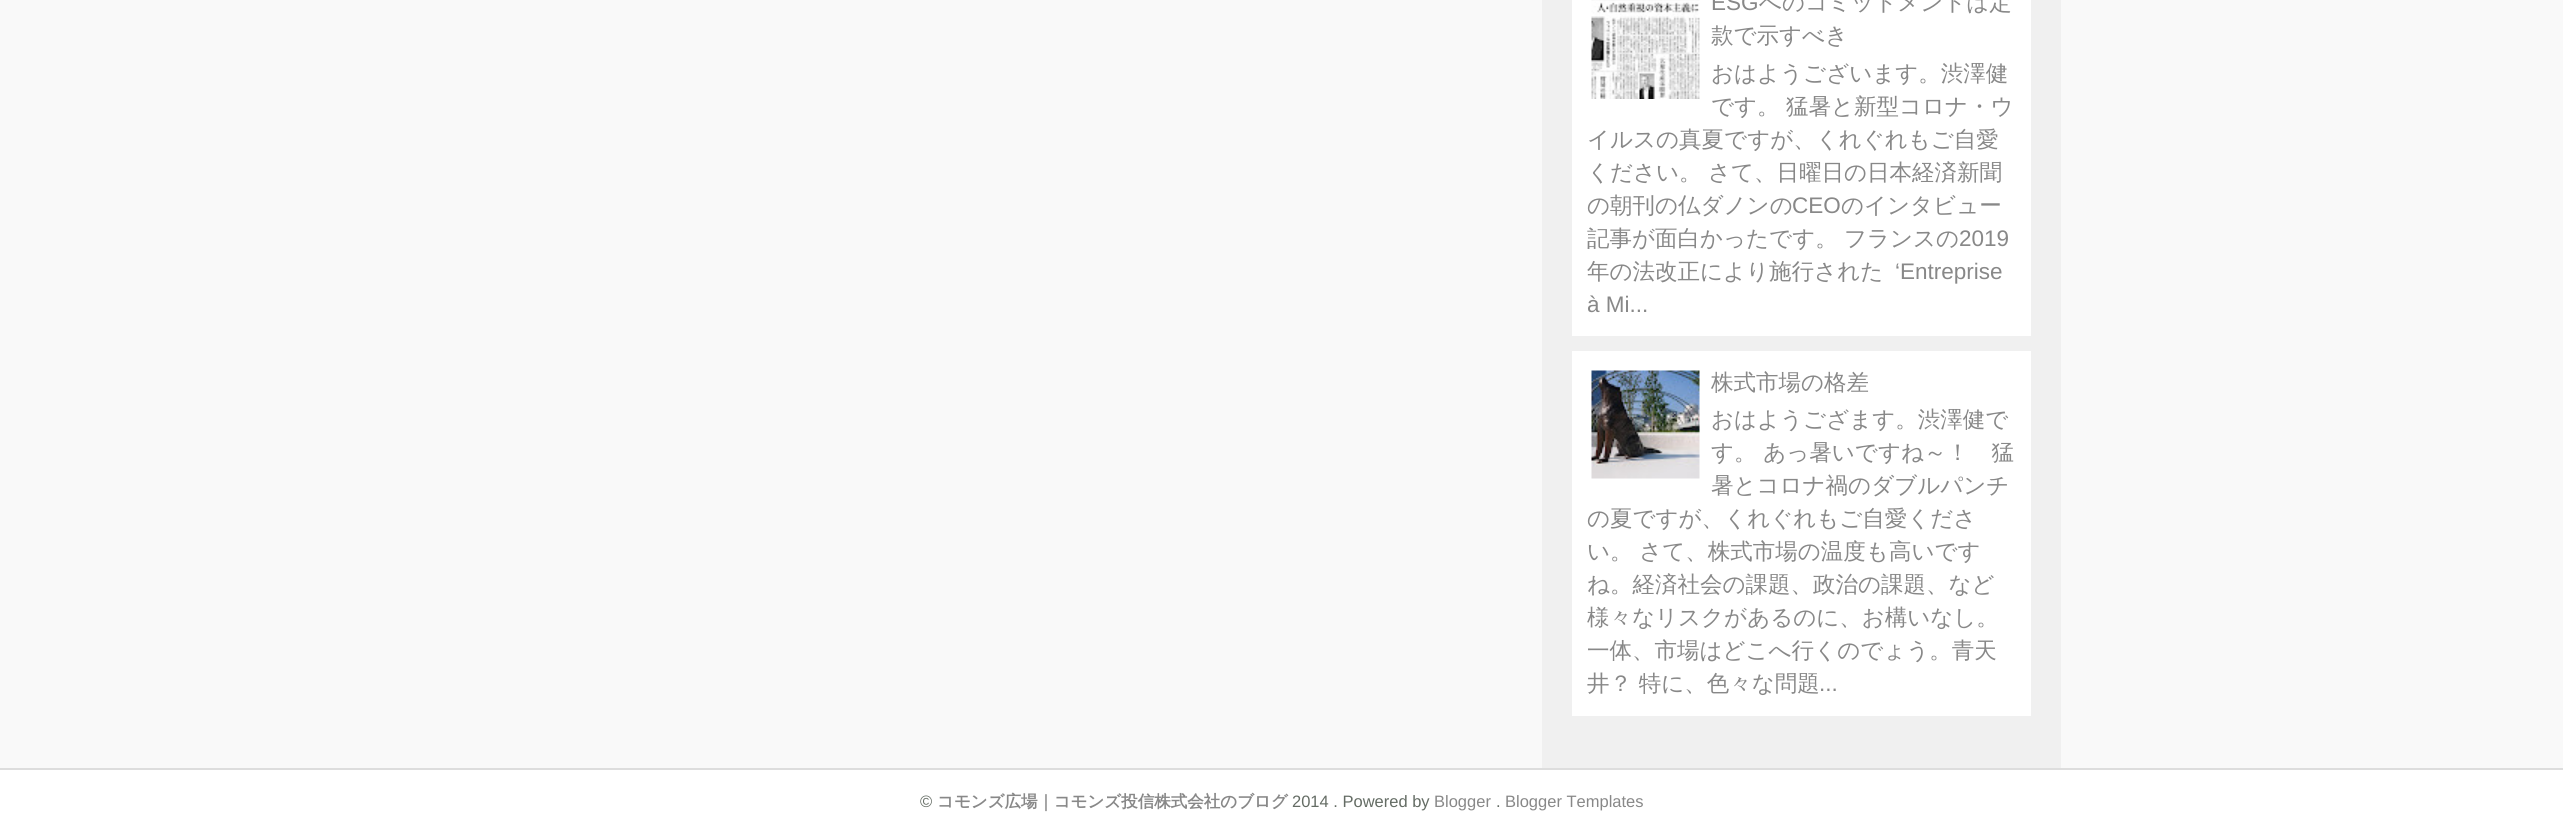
import math
import cairo

surface = cairo.ImageSurface(cairo.FORMAT_RGB24, 2563, 832)
ctx = cairo.Context(surface)
options = cairo.FontOptions()
options.set_hint_metrics(cairo.HINT_METRICS_OFF)
options.set_hint_style(cairo.HINT_STYLE_NONE)
ctx.set_font_options(options)
ctx.set_miter_limit(4)


def picture(path, x, y, w, h):
    ctx.save()
    ctx.set_source_surface(cairo.ImageSurface.create_from_png(path), x, y)
    ctx.rectangle(x, y, w, h)
    ctx.fill()
    ctx.restore()


ctx.set_source_rgb(0.976, 0.976, 0.976)
ctx.paint()
ctx.set_source_rgb(0.941, 0.941, 0.941)
ctx.rectangle(1542, 0, 519, 768)
ctx.fill()
ctx.set_source_rgb(1, 1, 1)
ctx.rectangle(1572, 0, 459, 336)
ctx.fill()
picture("img1.png", 1591, 0, 109, 99)
ctx.select_font_face("Liberation Sans")
ctx.set_font_size(22.5)
ctx.set_source_rgb(0.533, 0.533, 0.533)
ctx.move_to(1711, 10)
ctx.show_text("ESG")
ctx.select_font_face("WenQuanYi Zen Hei Medium")
ctx.move_to(1759, 10)
ctx.show_text("へのコミットメントは定")
ctx.move_to(1711, 43)
ctx.show_text("款で示すべき")
ctx.move_to(1711, 81)
ctx.show_text("おはようございます。渋澤健")
ctx.move_to(1711, 114)
ctx.show_text("です。")
ctx.move_to(1786, 114)
ctx.show_text("猛暑と新型コロナ・ウ")
ctx.move_to(1587, 147)
ctx.show_text("イルスの真夏ですが、くれぐれもご自愛")
ctx.move_to(1587, 180)
ctx.show_text("ください。")
ctx.move_to(1708, 180)
ctx.show_text("さて、日曜日の日本経済新聞")
ctx.move_to(1587, 213)
ctx.show_text("の朝刊の仏ダノンの")
ctx.select_font_face("Liberation Sans")
ctx.move_to(1792, 213)
ctx.show_text("CEO")
ctx.select_font_face("WenQuanYi Zen Hei Medium")
ctx.move_to(1841, 213)
ctx.show_text("のインタビュー")
ctx.move_to(1587, 246)
ctx.show_text("記事が面白かったです。")
ctx.move_to(1844, 246)
ctx.show_text("フランスの")
ctx.select_font_face("Liberation Sans")
ctx.move_to(1959, 246)
ctx.show_text("2019")
ctx.select_font_face("WenQuanYi Zen Hei Medium")
ctx.move_to(1587, 279)
ctx.show_text("年の法改正により施行された")
ctx.select_font_face("Liberation Sans")
ctx.move_to(1895, 279)
ctx.show_text("‘Entreprise")
ctx.move_to(1587, 312)
ctx.show_text("à Mi...")
ctx.set_source_rgb(1, 1, 1)
ctx.rectangle(1572, 351, 459, 365)
ctx.fill()
picture("img2.png", 1591, 370, 109, 109)
ctx.select_font_face("WenQuanYi Zen Hei Medium")
ctx.set_source_rgb(0.533, 0.533, 0.533)
ctx.move_to(1711, 390)
ctx.show_text("株式市場の格差")
ctx.move_to(1711, 427)
ctx.show_text("おはようござます。渋澤健で")
ctx.move_to(1711, 460)
ctx.show_text("す。 あっ暑いですね～！　猛")
ctx.move_to(1711, 493)
ctx.show_text("暑とコロナ禍のダブルパンチ")
ctx.move_to(1587, 526)
ctx.show_text("の夏ですが、くれぐれもご自愛くださ")
ctx.move_to(1587, 559)
ctx.show_text("い。 さて、株式市場の温度も高いです")
ctx.move_to(1587, 592)
ctx.show_text("ね。経済社会の課題、政治の課題、など")
ctx.move_to(1587, 625)
ctx.show_text("様々なリスクがあるのに、お構いなし。")
ctx.move_to(1587, 658)
ctx.show_text("一体、市場はどこへ行くのでょう。青天")
ctx.move_to(1587, 691)
ctx.show_text("井？ 特に、色々な問題")
ctx.select_font_face("Liberation Sans")
ctx.move_to(1819, 691)
ctx.show_text("...")
ctx.set_source_rgb(1, 1, 1)
ctx.rectangle(0, 770, 2563, 62)
ctx.fill()
ctx.set_source_rgb(0.867, 0.867, 0.867)
ctx.rectangle(0, 768, 2563, 2)
ctx.fill()
ctx.set_font_size(16.5)
ctx.set_source_rgb(0.392, 0.424, 0.392)
ctx.move_to(920, 807)
ctx.show_text("©")
ctx.select_font_face("WenQuanYi Zen Hei", cairo.FONT_SLANT_NORMAL, cairo.FONT_WEIGHT_BOLD)
ctx.set_source_rgb(0.533, 0.533, 0.533)
ctx.move_to(937, 807)
ctx.show_text("コモンズ広場｜コモンズ投信株式会社のブログ")
ctx.select_font_face("Liberation Sans")
ctx.set_source_rgb(0.392, 0.424, 0.392)
ctx.move_to(1292, 807)
ctx.show_text("2014 . Powered by")
ctx.set_source_rgb(0.533, 0.533, 0.533)
ctx.move_to(1434, 807)
ctx.show_text("Blogger")
ctx.set_source_rgb(0.392, 0.424, 0.392)
ctx.move_to(1496, 807)
ctx.show_text(".")
ctx.set_source_rgb(0.533, 0.533, 0.533)
ctx.move_to(1505, 807)
ctx.show_text("Blogger Templates")
surface.write_to_png("page.png")
